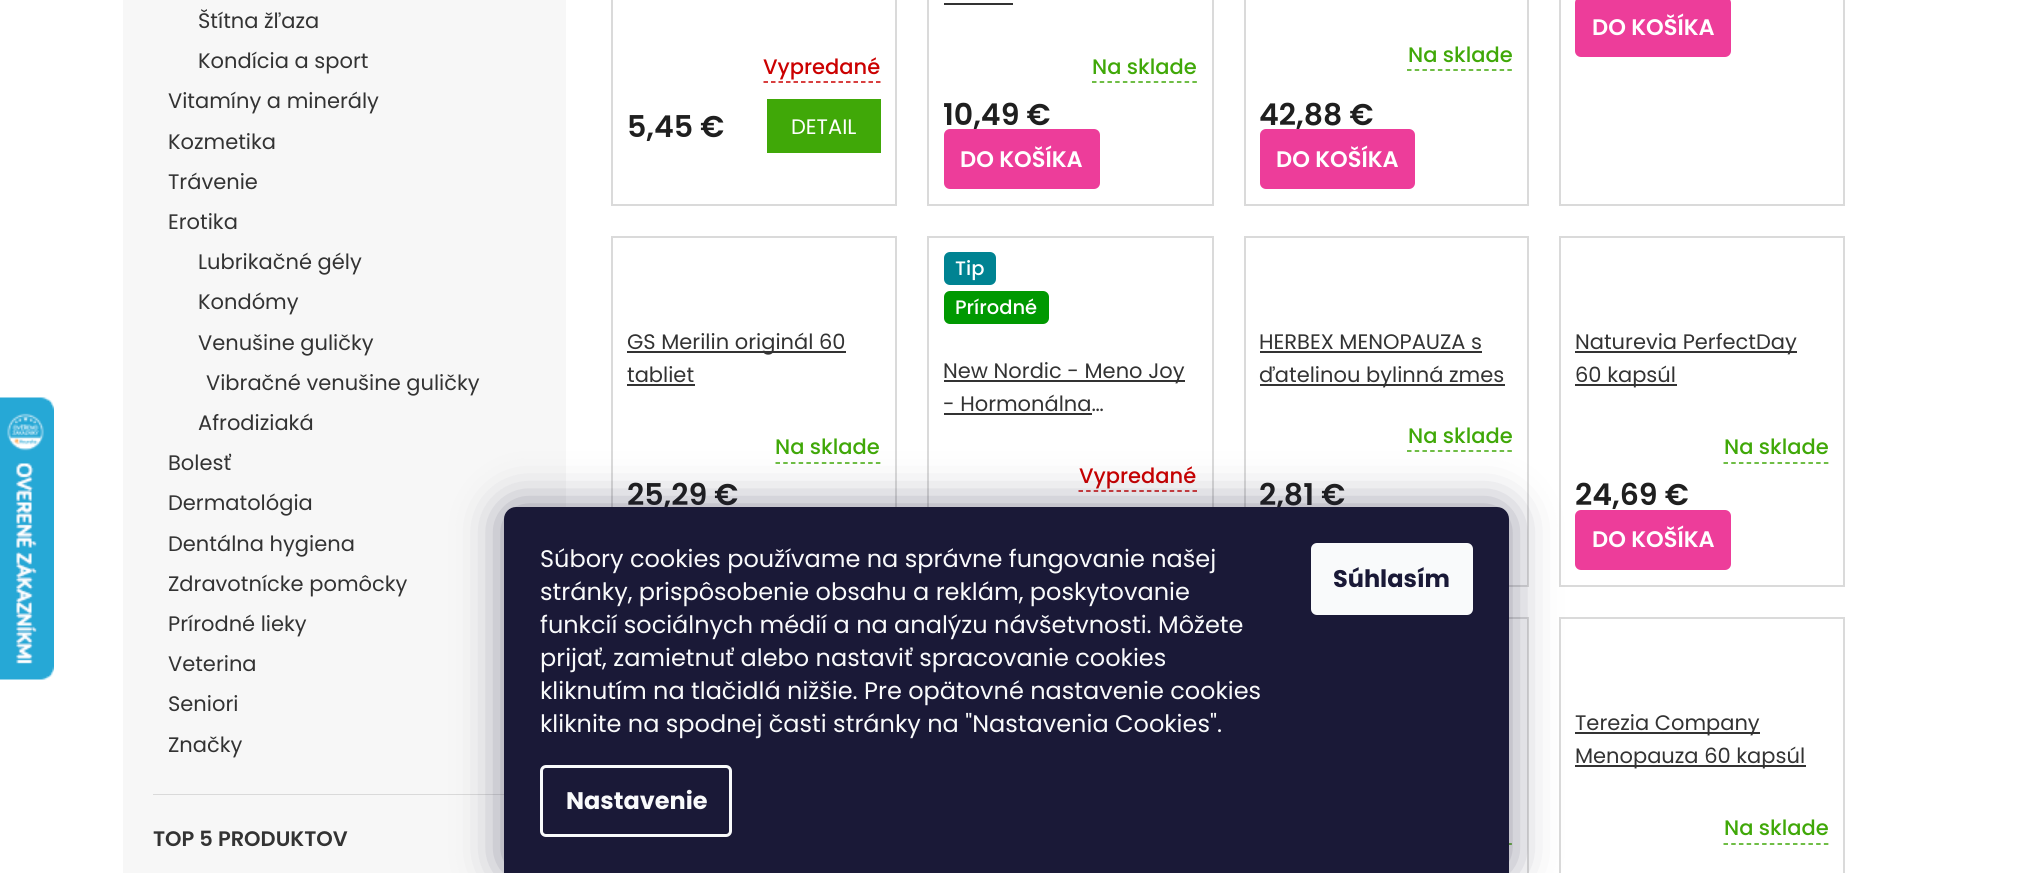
import math
import cairo

surface = cairo.ImageSurface(cairo.FORMAT_RGB24, 2035, 873)
ctx = cairo.Context(surface)
options = cairo.FontOptions()
options.set_hint_metrics(cairo.HINT_METRICS_OFF)
options.set_hint_style(cairo.HINT_STYLE_NONE)
ctx.set_font_options(options)
ctx.set_miter_limit(4)


def round_rect(x, y, w, h, r):
    ctx.new_sub_path()
    for i, (u, v) in enumerate([(x + w - r, y + h - r), (x + r, y + h - r), (x + r, y + r), (x + w - r, y + r)]):
        ctx.arc(u, v, r, i * math.pi / 2, (i + 1) * math.pi / 2)
    ctx.close_path()


def shadow(x, y, w, h, r, blur, alpha):
    ctx.push_group_with_content(cairo.CONTENT_ALPHA)
    ctx.set_operator(cairo.OPERATOR_SOURCE)
    for i in range(15, -16, -2):
        e = blur * i / 6
        if min(w, h) + 2 * e > 0:
            ctx.set_source_rgba(0, 0, 0, alpha * math.erfc((i - 1) / 8.5) / 2)
            round_rect(x - e, y - e, w + 2 * e, h + 2 * e, max(0, min(r + e + blur * .6, min(w, h) / 2 + e)))
            ctx.fill()
    ctx.mask(ctx.pop_group())


def picture(path, x, y, w, h):
    ctx.save()
    ctx.set_source_surface(cairo.ImageSurface.create_from_png(path), x, y)
    ctx.rectangle(x, y, w, h)
    ctx.fill()
    ctx.restore()


ctx.set_source_rgb(1, 1, 1)
ctx.paint()
picture("img1.png", 0, 397, 54, 283)
ctx.set_source_rgb(0.965, 0.965, 0.965)
ctx.rectangle(123, 0, 443, 873)
ctx.fill()
ctx.set_source_rgb(0.855, 0.855, 0.855)
ctx.rectangle(153, 794, 351, 1)
ctx.fill()
ctx.select_font_face("Poppins")
ctx.set_font_size(21)
ctx.set_source_rgb(0.2, 0.2, 0.2)
ctx.move_to(198, 28)
ctx.show_text("Štítna žľaza")
ctx.move_to(198, 68)
ctx.show_text("Kondícia a sport")
ctx.move_to(168, 108)
ctx.show_text("Vitamíny a minerály")
ctx.move_to(168, 149)
ctx.show_text("Kozmetika")
ctx.move_to(168, 189)
ctx.show_text("Trávenie")
ctx.move_to(168, 229)
ctx.show_text("Erotika")
ctx.move_to(198, 269)
ctx.show_text("Lubrikačné gély")
ctx.move_to(198, 309)
ctx.show_text("Kondómy")
ctx.move_to(198, 350)
ctx.show_text("Venušine guličky")
ctx.move_to(206, 390)
ctx.show_text("Vibračné venušine guličky")
ctx.move_to(198, 430)
ctx.show_text("Afrodiziaká")
ctx.move_to(168, 470)
ctx.show_text("Bolesť")
ctx.move_to(168, 510)
ctx.show_text("Dermatológia")
ctx.move_to(168, 551)
ctx.show_text("Dentálna hygiena")
ctx.move_to(168, 591)
ctx.show_text("Zdravotnícke pomôcky")
ctx.move_to(168, 631)
ctx.show_text("Prírodné lieky")
ctx.move_to(168, 671)
ctx.show_text("Veterina")
ctx.move_to(168, 711)
ctx.show_text("Seniori")
ctx.move_to(168, 752)
ctx.show_text("Značky")
ctx.select_font_face("Poppins SemiBold")
ctx.move_to(153, 846)
ctx.show_text("TOP 5 PRODUKTOV")
ctx.rectangle(1560, -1, 284, 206)
ctx.set_source_rgb(0.855, 0.855, 0.855)
ctx.stroke()
ctx.set_source_rgb(0.929, 0.239, 0.604)
round_rect(1576, -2, 154, 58, 5)
ctx.fill_preserve()
ctx.stroke()
ctx.set_font_size(22.5)
ctx.set_source_rgb(1, 1, 1)
ctx.move_to(1592, 35)
ctx.show_text("DO KOŠÍKA")
ctx.rectangle(612, -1, 284, 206)
ctx.set_source_rgb(0.855, 0.855, 0.855)
ctx.stroke()
ctx.select_font_face("Poppins Medium")
ctx.set_font_size(21)
ctx.set_source_rgb(0.796, 0, 0)
ctx.move_to(763, 74)
ctx.show_text("Vypredané")
ctx.new_path()
ctx.move_to(763.5, 82)
ctx.line_to(880.5, 82)
ctx.set_line_width(1.5)
ctx.set_dash([4.5, 3])
ctx.stroke()
ctx.select_font_face("Poppins SemiBold")
ctx.set_font_size(30)
ctx.set_source_rgb(0.122, 0.122, 0.122)
ctx.move_to(627, 137)
ctx.show_text("5,45 €")
ctx.set_source_rgb(0.251, 0.659, 0.035)
ctx.rectangle(767, 99, 114, 54)
ctx.fill()
ctx.select_font_face("Poppins")
ctx.set_font_size(21)
ctx.set_source_rgb(1, 1, 1)
ctx.move_to(791, 134)
ctx.show_text("DETAIL")
ctx.rectangle(928, -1, 285, 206)
ctx.set_source_rgb(0.855, 0.855, 0.855)
ctx.set_line_width(2)
ctx.set_dash([])
ctx.stroke()
ctx.set_source_rgb(0.2, 0.2, 0.2)
ctx.rectangle(944, 3, 69, 2)
ctx.fill()
ctx.select_font_face("Poppins Medium")
ctx.set_source_rgb(0.251, 0.659, 0.035)
ctx.move_to(1092, 74)
ctx.show_text("Na sklade")
ctx.new_path()
ctx.move_to(1092, 82)
ctx.line_to(1197, 82)
ctx.set_line_width(1.5)
ctx.set_dash([4.5, 3.22])
ctx.stroke()
ctx.select_font_face("Poppins SemiBold")
ctx.set_font_size(30)
ctx.set_source_rgb(0.122, 0.122, 0.122)
ctx.move_to(943, 125)
ctx.show_text("10,49 €")
ctx.set_source_rgb(0.929, 0.239, 0.604)
round_rect(945, 130, 154, 58, 5)
ctx.fill_preserve()
ctx.set_line_width(2)
ctx.set_dash([])
ctx.stroke()
ctx.set_font_size(22.5)
ctx.set_source_rgb(1, 1, 1)
ctx.move_to(960, 167)
ctx.show_text("DO KOŠÍKA")
ctx.rectangle(1245, -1, 283, 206)
ctx.set_source_rgb(0.855, 0.855, 0.855)
ctx.stroke()
ctx.select_font_face("Poppins Medium")
ctx.set_font_size(21)
ctx.set_source_rgb(0.251, 0.659, 0.035)
ctx.move_to(1408, 62)
ctx.show_text("Na sklade")
ctx.new_path()
ctx.move_to(1407, 70)
ctx.line_to(1512, 70)
ctx.set_line_width(1.5)
ctx.set_dash([4.5, 3.22])
ctx.stroke()
ctx.select_font_face("Poppins SemiBold")
ctx.set_font_size(30)
ctx.set_source_rgb(0.122, 0.122, 0.122)
ctx.move_to(1259, 125)
ctx.show_text("42,88 €")
ctx.set_source_rgb(0.929, 0.239, 0.604)
round_rect(1261, 130, 153, 58, 5)
ctx.fill_preserve()
ctx.set_line_width(2)
ctx.set_dash([])
ctx.stroke()
ctx.set_font_size(22.5)
ctx.set_source_rgb(1, 1, 1)
ctx.move_to(1276, 167)
ctx.show_text("DO KOŠÍKA")
ctx.rectangle(612, 237, 284, 349)
ctx.set_source_rgb(0.855, 0.855, 0.855)
ctx.stroke()
ctx.set_source_rgb(0.2, 0.2, 0.2)
ctx.rectangle(627, 351, 219, 2)
ctx.fill()
ctx.select_font_face("Poppins")
ctx.set_font_size(21)
ctx.move_to(627, 349)
ctx.show_text("GS Merilin originál 60")
ctx.move_to(627, 382)
ctx.show_text("tabliet")
ctx.rectangle(627, 384, 68, 2)
ctx.fill()
ctx.select_font_face("Poppins Medium")
ctx.set_source_rgb(0.251, 0.659, 0.035)
ctx.move_to(775, 454)
ctx.show_text("Na sklade")
ctx.new_path()
ctx.move_to(775.5, 463)
ctx.line_to(880.5, 463)
ctx.set_line_width(1.5)
ctx.set_dash([4.5, 3.22])
ctx.stroke()
ctx.select_font_face("Poppins SemiBold")
ctx.set_font_size(30)
ctx.set_source_rgb(0.122, 0.122, 0.122)
ctx.move_to(627, 505)
ctx.show_text("25,29 €")
ctx.rectangle(928, 237, 285, 349)
ctx.set_source_rgb(0.855, 0.855, 0.855)
ctx.set_line_width(2)
ctx.set_dash([])
ctx.stroke()
ctx.set_source_rgb(0, 0.514, 0.573)
round_rect(944, 252, 52, 33, 6)
ctx.fill()
ctx.select_font_face("Poppins Medium")
ctx.set_font_size(19.5)
ctx.set_source_rgb(1, 1, 1)
ctx.move_to(955, 275)
ctx.show_text("Tip")
ctx.set_source_rgb(0, 0.6, 0.004)
round_rect(944, 291, 105, 33, 6)
ctx.fill()
ctx.set_source_rgb(1, 1, 1)
ctx.move_to(955, 314)
ctx.show_text("Prírodné")
ctx.set_source_rgb(0.2, 0.2, 0.2)
ctx.rectangle(944, 380, 241, 2)
ctx.fill()
ctx.select_font_face("Poppins")
ctx.set_font_size(21)
ctx.move_to(943, 378)
ctx.show_text("New Nordic - Meno Joy")
ctx.move_to(943, 411)
ctx.show_text("- Hormonálna…")
ctx.rectangle(944, 413, 148, 2)
ctx.fill()
ctx.select_font_face("Poppins Medium")
ctx.set_source_rgb(0.796, 0, 0)
ctx.move_to(1079, 483)
ctx.show_text("Vypredané")
ctx.new_path()
ctx.move_to(1078.5, 491)
ctx.line_to(1197, 491)
ctx.set_line_width(1.5)
ctx.set_dash([4.5, 3.1])
ctx.stroke()
ctx.rectangle(1245, 237, 283, 349)
ctx.set_source_rgb(0.855, 0.855, 0.855)
ctx.set_line_width(2)
ctx.set_dash([])
ctx.stroke()
ctx.select_font_face("Poppins")
ctx.set_source_rgb(0.2, 0.2, 0.2)
ctx.move_to(1259, 349)
ctx.show_text("HERBEX MENOPAUZA s")
ctx.rectangle(1260, 351, 222, 2)
ctx.fill()
ctx.rectangle(1260, 384, 245, 2)
ctx.fill()
ctx.move_to(1259, 382)
ctx.show_text("ďatelinou bylinná zmes")
ctx.select_font_face("Poppins Medium")
ctx.set_source_rgb(0.251, 0.659, 0.035)
ctx.move_to(1408, 443)
ctx.show_text("Na sklade")
ctx.new_path()
ctx.move_to(1407, 451)
ctx.line_to(1512, 451)
ctx.set_line_width(1.5)
ctx.set_dash([4.5, 3.22])
ctx.stroke()
ctx.select_font_face("Poppins SemiBold")
ctx.set_font_size(30)
ctx.set_source_rgb(0.122, 0.122, 0.122)
ctx.move_to(1259, 505)
ctx.show_text("2,81 €")
ctx.rectangle(1560, 237, 284, 349)
ctx.set_source_rgb(0.855, 0.855, 0.855)
ctx.set_line_width(2)
ctx.set_dash([])
ctx.stroke()
ctx.set_source_rgb(0.2, 0.2, 0.2)
ctx.rectangle(1575, 351, 222, 2)
ctx.fill()
ctx.select_font_face("Poppins")
ctx.set_font_size(21)
ctx.move_to(1575, 349)
ctx.show_text("Naturevia PerfectDay")
ctx.rectangle(1575, 384, 102, 2)
ctx.fill()
ctx.move_to(1575, 382)
ctx.show_text("60 kapsúl")
ctx.select_font_face("Poppins Medium")
ctx.set_source_rgb(0.251, 0.659, 0.035)
ctx.move_to(1724, 454)
ctx.show_text("Na sklade")
ctx.new_path()
ctx.move_to(1723.5, 463)
ctx.line_to(1828.5, 463)
ctx.set_line_width(1.5)
ctx.set_dash([4.5, 3.22])
ctx.stroke()
ctx.select_font_face("Poppins SemiBold")
ctx.set_font_size(30)
ctx.set_source_rgb(0.122, 0.122, 0.122)
ctx.move_to(1575, 505)
ctx.show_text("24,69 €")
ctx.set_source_rgb(0.929, 0.239, 0.604)
round_rect(1576, 511, 154, 58, 5)
ctx.fill_preserve()
ctx.set_line_width(2)
ctx.set_dash([])
ctx.stroke()
ctx.set_font_size(22.5)
ctx.set_source_rgb(1, 1, 1)
ctx.move_to(1592, 547)
ctx.show_text("DO KOŠÍKA")
ctx.rectangle(1245, 618, 283, 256)
ctx.set_source_rgb(0.855, 0.855, 0.855)
ctx.stroke()
ctx.new_path()
ctx.move_to(1407, 844)
ctx.line_to(1512, 844)
ctx.set_source_rgb(0.251, 0.659, 0.035)
ctx.set_line_width(1.5)
ctx.set_dash([4.5, 3.22])
ctx.stroke()
ctx.rectangle(1560, 618, 284, 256)
ctx.set_source_rgb(0.855, 0.855, 0.855)
ctx.set_line_width(2)
ctx.set_dash([])
ctx.stroke()
ctx.set_source_rgb(0.2, 0.2, 0.2)
ctx.rectangle(1575, 732, 185, 2)
ctx.fill()
ctx.select_font_face("Poppins")
ctx.set_font_size(21)
ctx.move_to(1575, 730)
ctx.show_text("Terezia Company")
ctx.rectangle(1575, 765, 231, 2)
ctx.fill()
ctx.move_to(1575, 763)
ctx.show_text("Menopauza 60 kapsúl")
ctx.select_font_face("Poppins Medium")
ctx.set_source_rgb(0.251, 0.659, 0.035)
ctx.move_to(1724, 835)
ctx.show_text("Na sklade")
ctx.new_path()
ctx.move_to(1723.5, 844)
ctx.line_to(1828.5, 844)
ctx.set_line_width(1.5)
ctx.set_dash([4.5, 3.22])
ctx.stroke()
ctx.set_source_rgb(0.106, 0.098, 0.224)
shadow(504, 507, 1005, 366, 12, 22.5, 0.5)
ctx.set_source_rgb(0.102, 0.098, 0.216)
ctx.new_path()
ctx.move_to(516, 507)
ctx.line_to(1497, 507)
ctx.curve_to(1503.5, 507, 1509, 512.5, 1509, 519)
ctx.line_to(1509, 873)
ctx.line_to(504, 873)
ctx.line_to(504, 519)
ctx.curve_to(504, 512.5, 509.5, 507, 516, 507)
ctx.close_path()
ctx.fill()
ctx.select_font_face("Poppins")
ctx.set_font_size(24)
ctx.set_source_rgb(0.973, 0.98, 0.984)
ctx.move_to(540, 567)
ctx.show_text("Súbory cookies používame na správne fungovanie našej")
ctx.move_to(540, 600)
ctx.show_text("stránky, prispôsobenie obsahu a reklám, poskytovanie")
ctx.move_to(540, 633)
ctx.show_text("funkcií sociálnych médií a na analýzu návšetvnosti. Môžete")
ctx.move_to(540, 666)
ctx.show_text("prijať, zamietnuť alebo nastaviť spracovanie cookies")
ctx.move_to(540, 699)
ctx.show_text("kliknutím na tlačidlá nižšie. Pre opätovné nastavenie cookies")
ctx.move_to(540, 732)
ctx.show_text("kliknite na spodnej časti stránky na \"Nastavenia Cookies\".")
round_rect(541.5, 766.5, 189, 69, 4.5)
ctx.set_line_width(3)
ctx.set_dash([])
ctx.stroke()
ctx.select_font_face("Poppins", cairo.FONT_SLANT_NORMAL, cairo.FONT_WEIGHT_BOLD)
ctx.move_to(566, 809)
ctx.show_text("Nastavenie")
round_rect(1311, 543, 162, 72, 6)
ctx.fill()
ctx.set_source_rgb(0.102, 0.098, 0.216)
ctx.move_to(1333, 587)
ctx.show_text("Súhlasím")
surface.write_to_png("page.png")
